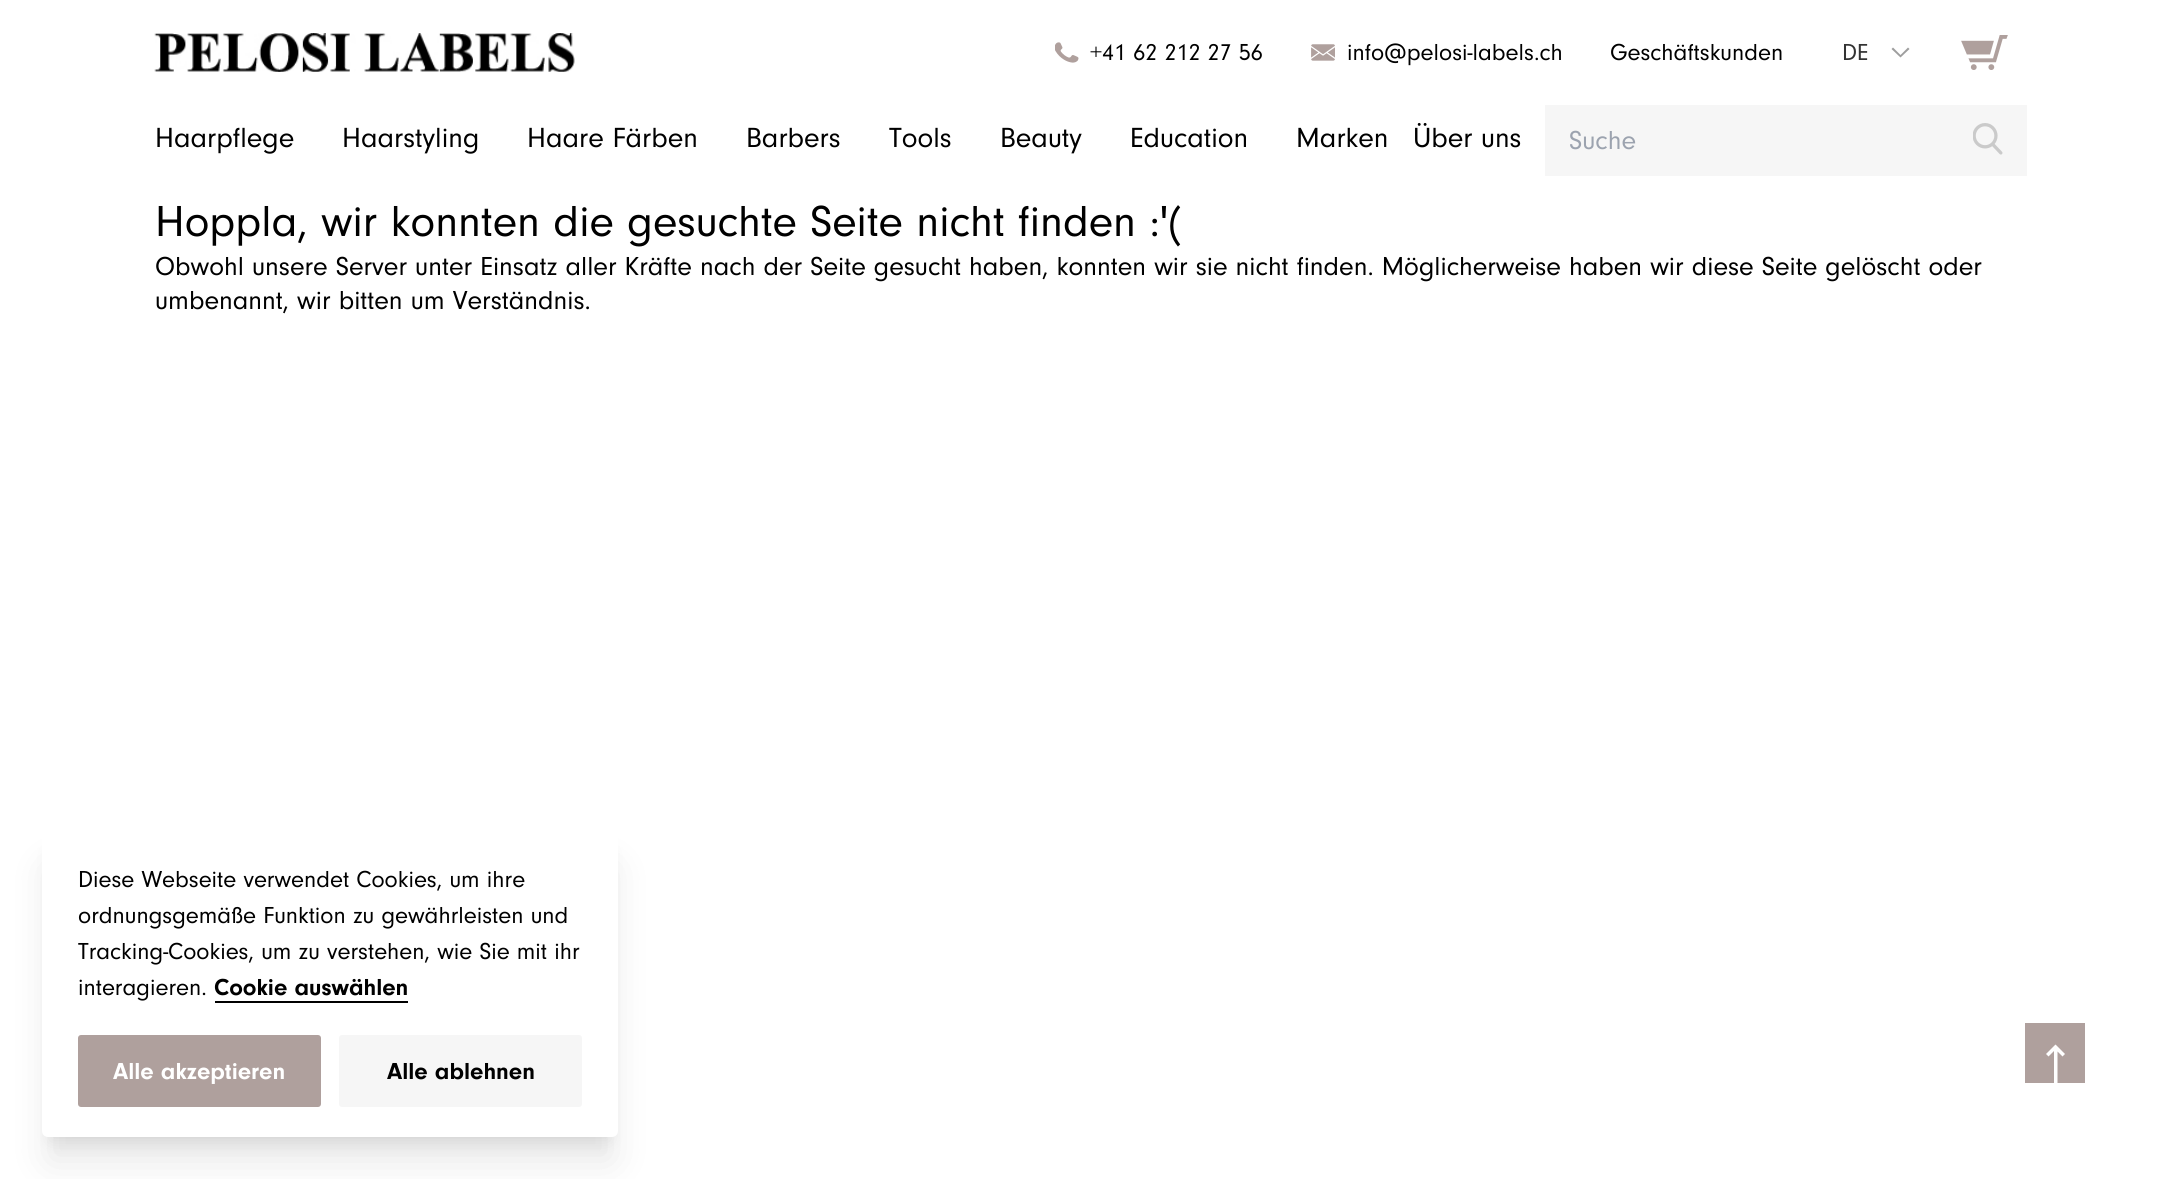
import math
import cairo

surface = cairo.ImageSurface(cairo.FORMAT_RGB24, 2181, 1179)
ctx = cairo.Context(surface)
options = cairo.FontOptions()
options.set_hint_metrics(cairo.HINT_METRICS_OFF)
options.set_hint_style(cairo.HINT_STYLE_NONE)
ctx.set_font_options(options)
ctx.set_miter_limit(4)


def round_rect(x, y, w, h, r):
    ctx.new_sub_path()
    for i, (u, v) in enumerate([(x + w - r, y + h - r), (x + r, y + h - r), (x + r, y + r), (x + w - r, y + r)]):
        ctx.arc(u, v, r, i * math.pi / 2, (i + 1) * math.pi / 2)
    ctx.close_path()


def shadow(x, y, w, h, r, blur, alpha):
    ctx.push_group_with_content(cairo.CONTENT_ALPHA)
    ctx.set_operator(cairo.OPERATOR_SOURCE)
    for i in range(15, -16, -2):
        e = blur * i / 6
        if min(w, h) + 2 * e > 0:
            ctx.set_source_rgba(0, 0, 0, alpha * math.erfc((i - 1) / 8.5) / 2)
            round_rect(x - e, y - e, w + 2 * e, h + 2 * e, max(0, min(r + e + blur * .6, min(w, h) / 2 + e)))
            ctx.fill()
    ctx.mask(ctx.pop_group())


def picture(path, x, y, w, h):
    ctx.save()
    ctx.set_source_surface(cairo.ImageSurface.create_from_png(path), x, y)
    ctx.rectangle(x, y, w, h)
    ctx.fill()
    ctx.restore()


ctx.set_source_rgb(1, 1, 1)
ctx.paint()
picture("img1.png", 154, 33, 421, 39)
picture("img2.png", 1055, 42, 24, 21)
ctx.select_font_face("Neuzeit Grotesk")
ctx.set_font_size(24)
ctx.set_source_rgb(0, 0, 0)
ctx.move_to(1090, 60)
ctx.show_text("+41 62 212 27 56")
picture("img3.png", 1311, 44, 24, 17)
ctx.move_to(1347, 60)
ctx.show_text("info@pelosi-labels.ch")
ctx.move_to(1610, 60)
ctx.show_text("Geschäftskunden")
ctx.set_source_rgb(0.2, 0.2, 0.2)
ctx.move_to(1842, 60)
ctx.show_text("DE")
ctx.set_source_rgb(0.62, 0.62, 0.62)
ctx.new_path()
ctx.move_to(1900.5, 57.5)
ctx.line_to(1891.5, 49)
ctx.line_to(1893, 47.5)
ctx.line_to(1900.5, 55)
ctx.line_to(1908, 47.5)
ctx.line_to(1909.5, 49)
ctx.close_path()
ctx.fill()
picture("img4.png", 1961, 35, 47, 35)
ctx.set_font_size(28.75)
ctx.set_source_rgb(0, 0, 0)
ctx.move_to(155, 147)
ctx.show_text("Haarpflege")
ctx.move_to(342, 147)
ctx.show_text("Haarstyling")
ctx.move_to(527, 147)
ctx.show_text("Haare Färben")
ctx.move_to(746, 147)
ctx.show_text("Barbers")
ctx.move_to(889, 147)
ctx.show_text("Tools")
ctx.move_to(1000, 147)
ctx.show_text("Beauty")
ctx.move_to(1130, 147)
ctx.show_text("Education")
ctx.move_to(1296, 147)
ctx.show_text("Marken")
ctx.move_to(1413, 147)
ctx.show_text("Über uns")
ctx.set_source_rgb(0.961, 0.961, 0.961)
ctx.rectangle(1545, 105, 482, 71)
ctx.fill()
ctx.set_font_size(27)
ctx.set_source_rgb(0.612, 0.639, 0.686)
ctx.move_to(1569, 149)
ctx.show_text("Suche")
picture("img5.png", 1973, 123, 30, 32)
ctx.set_font_size(45)
ctx.set_source_rgb(0, 0, 0)
ctx.move_to(155, 236)
ctx.show_text("Hoppla, wir konnten die gesuchte Seite nicht finden :'(")
ctx.set_font_size(27)
ctx.move_to(155, 275)
ctx.show_text("Obwohl unsere Server unter Einsatz aller Kräfte nach der Seite gesucht haben, konnten wir sie nicht finden. Möglicherweise haben wir diese Seite gelöscht oder")
ctx.move_to(155, 309)
ctx.show_text("umbenannt, wir bitten um Verständnis.")
ctx.set_source_rgb(0, 0, 0)
shadow(51, 852, 558, 288, 0, 7.5, 0.1)
shadow(50, 869, 561, 291, 0, 19, 0.1)
ctx.set_source_rgb(1, 1, 1)
round_rect(42, 831, 576, 306, 6)
ctx.fill()
ctx.set_font_size(24)
ctx.set_source_rgb(0, 0, 0)
ctx.move_to(78, 887)
ctx.show_text("Diese Webseite verwendet Cookies, um ihre")
ctx.move_to(78, 923)
ctx.show_text("ordnungsgemäße Funktion zu gewährleisten und")
ctx.move_to(78, 959)
ctx.show_text("Tracking-Cookies, um zu verstehen, wie Sie mit ihr")
ctx.move_to(78, 995)
ctx.show_text("interagieren.")
ctx.select_font_face("Neuzeit Grotesk", cairo.FONT_SLANT_NORMAL, cairo.FONT_WEIGHT_BOLD)
ctx.move_to(214, 995)
ctx.show_text("Cookie auswählen")
ctx.rectangle(215, 1001, 193, 2)
ctx.fill()
ctx.set_source_rgb(0.686, 0.627, 0.616)
round_rect(78, 1035, 243, 72, 3)
ctx.fill()
ctx.set_source_rgb(1, 1, 1)
ctx.move_to(113, 1079)
ctx.show_text("Alle akzeptieren")
ctx.set_source_rgb(0.961, 0.961, 0.961)
round_rect(339, 1035, 243, 72, 3)
ctx.fill()
ctx.set_source_rgb(0, 0, 0)
ctx.move_to(387, 1079)
ctx.show_text("Alle ablehnen")
ctx.set_source_rgb(0.686, 0.627, 0.616)
ctx.rectangle(2025, 1023, 60, 60)
ctx.fill()
ctx.set_source_rgb(1, 1, 1)
ctx.new_path()
ctx.move_to(2062.5, 1056.5)
ctx.line_to(2057.5, 1051.5)
ctx.line_to(2057.5, 1083)
ctx.line_to(2054, 1083)
ctx.line_to(2054, 1051)
ctx.line_to(2048.5, 1056.5)
ctx.line_to(2046, 1054)
ctx.line_to(2055.5, 1044.5)
ctx.line_to(2065, 1054)
ctx.close_path()
ctx.fill()
surface.write_to_png("page.png")
